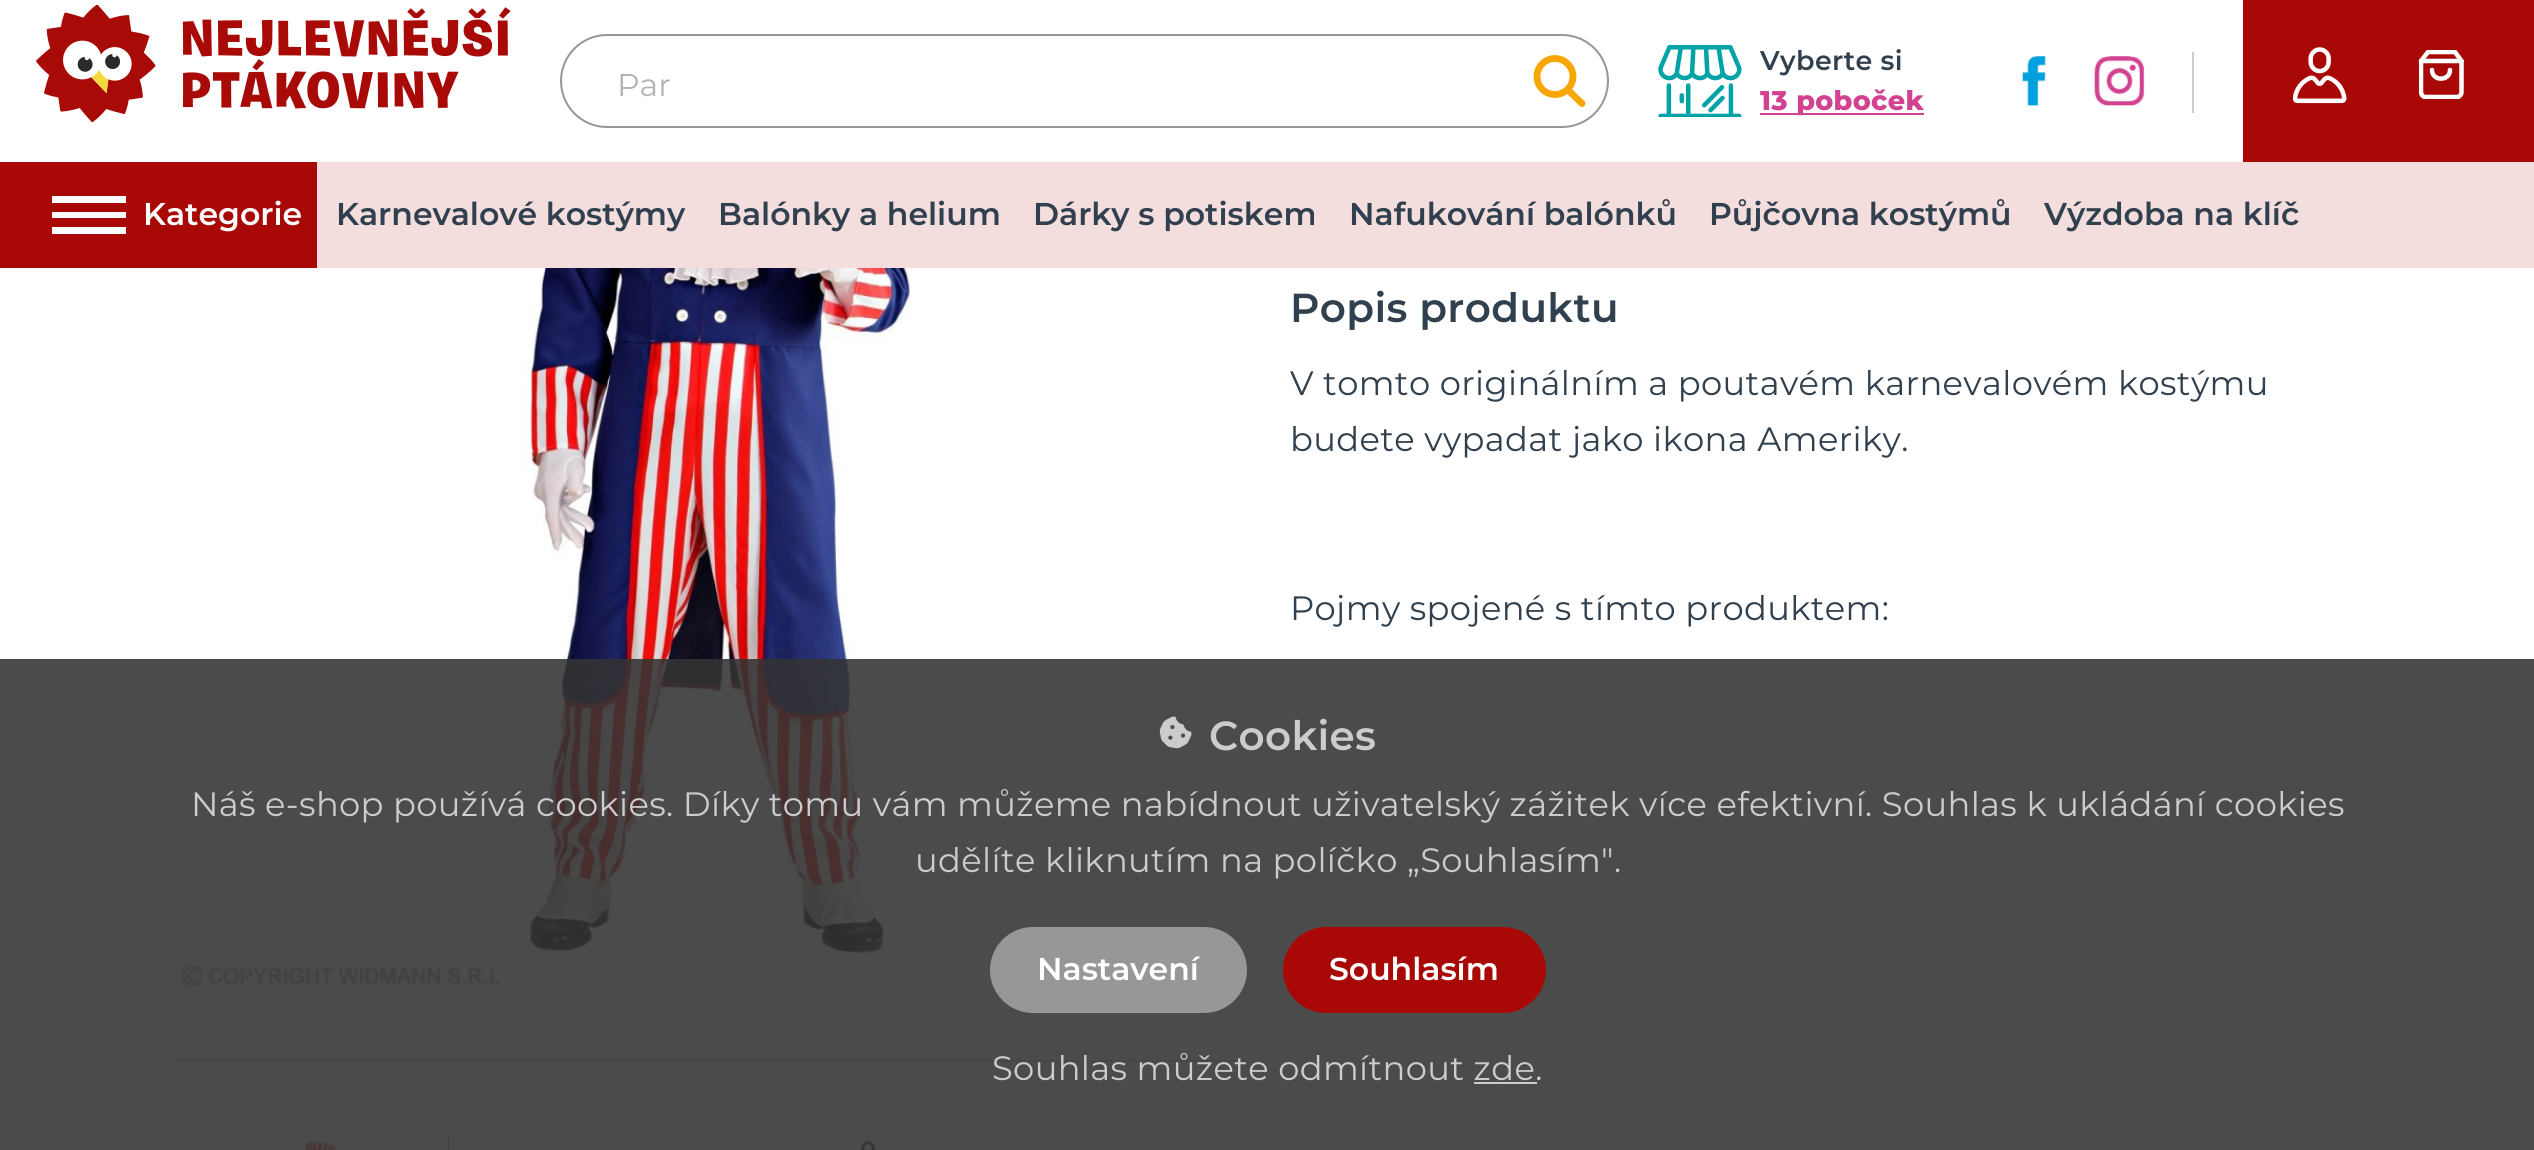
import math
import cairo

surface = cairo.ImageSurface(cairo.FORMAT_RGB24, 2534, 1150)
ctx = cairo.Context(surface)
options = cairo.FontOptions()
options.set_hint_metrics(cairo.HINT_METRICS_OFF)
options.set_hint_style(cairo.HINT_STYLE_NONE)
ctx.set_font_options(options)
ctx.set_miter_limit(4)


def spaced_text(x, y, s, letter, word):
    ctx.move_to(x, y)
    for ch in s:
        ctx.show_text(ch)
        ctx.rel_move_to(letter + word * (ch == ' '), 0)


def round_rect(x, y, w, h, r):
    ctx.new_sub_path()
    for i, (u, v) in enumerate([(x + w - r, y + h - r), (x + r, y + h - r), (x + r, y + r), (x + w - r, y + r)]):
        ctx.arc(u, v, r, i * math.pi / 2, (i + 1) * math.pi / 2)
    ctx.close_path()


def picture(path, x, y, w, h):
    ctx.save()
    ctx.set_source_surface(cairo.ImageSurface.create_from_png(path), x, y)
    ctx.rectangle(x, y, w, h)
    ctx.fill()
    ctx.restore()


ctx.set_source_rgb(1, 1, 1)
ctx.paint()
picture("img1.png", 36, 5, 475, 118)
round_rect(561, 35, 1047, 92, 46)
ctx.set_source_rgb(0.592, 0.592, 0.592)
ctx.stroke()
ctx.save()
round_rect(563, 36, 1044, 90, 45)
ctx.clip()
ctx.set_source_rgb(1, 1, 1)
round_rect(563, 38, 949, 86, 11)
ctx.fill()
ctx.restore()
ctx.select_font_face("Montserrat")
ctx.set_font_size(31.5)
ctx.set_source_rgb(0.702, 0.702, 0.702)
ctx.move_to(617, 96)
ctx.show_text("Par")
ctx.new_path()
ctx.move_to(1573, 76.5)
ctx.curve_to(1573, 86.5, 1564.5, 94.5, 1555, 94.5)
ctx.curve_to(1545, 94.5, 1537, 86.5, 1537, 76.5)
ctx.curve_to(1537, 66.5, 1545, 58.5, 1555, 58.5)
ctx.curve_to(1564.5, 58.5, 1573, 66.5, 1573, 76.5)
ctx.close_path()
ctx.move_to(1582, 103.5)
ctx.line_to(1568, 90)
ctx.set_source_rgb(0.969, 0.651, 0)
ctx.set_line_width(6.8)
ctx.set_line_cap(cairo.LINE_CAP_ROUND)
ctx.set_line_join(cairo.LINE_JOIN_ROUND)
ctx.stroke()
picture("img2.png", 1658, 45, 84, 72)
ctx.select_font_face("Montserrat SemiBold")
ctx.set_font_size(27)
ctx.set_source_rgb(0.192, 0.251, 0.306)
spaced_text(1760, 70, "Vyberte si", 0.36, 0)
ctx.set_source_rgb(0.824, 0.259, 0.569)
ctx.rectangle(1760, 113, 164, 2)
ctx.fill()
ctx.select_font_face("Montserrat ExtraBold")
spaced_text(1760, 110, "13 poboček", 0.36, 0)
picture("img3.png", 2022, 56, 24, 51)
picture("img4.png", 2094, 56, 51, 51)
ctx.set_source_rgb(0.8, 0.8, 0.8)
ctx.rectangle(2192, 52, 2, 61)
ctx.fill()
ctx.set_source_rgb(0.659, 0.039, 0.031)
ctx.rectangle(2243, 0, 291, 162)
ctx.fill()
picture("img5.png", 2293, 47, 54, 57)
ctx.save()
ctx.rectangle(2419, 50, 45, 49)
ctx.clip()
ctx.new_path()
ctx.move_to(2428, 52)
ctx.line_to(2421, 61)
ctx.line_to(2421, 92)
ctx.curve_to(2421, 94.5, 2423, 97, 2425.5, 97)
ctx.line_to(2457, 97)
ctx.curve_to(2459.5, 97, 2461.5, 94.5, 2461.5, 92)
ctx.line_to(2461.5, 61)
ctx.line_to(2455, 52)
ctx.close_path()
ctx.set_source_rgb(1, 1, 1)
ctx.set_line_width(4.5)
ctx.stroke()
ctx.restore()
ctx.new_path()
ctx.move_to(2421, 61)
ctx.line_to(2461.5, 61)
ctx.move_to(2450, 70)
ctx.curve_to(2450, 81.5, 2432, 81.5, 2432, 70)
ctx.set_source_rgb(1, 1, 1)
ctx.set_line_width(4.5)
ctx.stroke()
ctx.set_source_rgb(0.953, 0.867, 0.867)
ctx.rectangle(317, 162, 2217, 106)
ctx.fill()
ctx.set_source_rgb(0.659, 0.039, 0.031)
ctx.rectangle(0, 162, 317, 106)
ctx.fill()
ctx.set_source_rgb(1, 1, 1)
ctx.rectangle(52, 196, 74, 7)
ctx.fill()
ctx.rectangle(52, 212, 74, 6)
ctx.fill()
ctx.rectangle(52, 227, 74, 7)
ctx.fill()
ctx.select_font_face("Montserrat SemiBold")
ctx.set_font_size(31.5)
ctx.move_to(143, 225)
ctx.show_text("Kategorie")
ctx.set_source_rgb(0.192, 0.251, 0.306)
ctx.move_to(336, 225)
ctx.show_text("Karnevalové kostýmy")
ctx.move_to(718, 225)
ctx.show_text("Balónky a helium")
ctx.move_to(1033, 225)
ctx.show_text("Dárky s potiskem")
ctx.move_to(1349, 225)
ctx.show_text("Nafukování balónků")
ctx.move_to(1709, 225)
ctx.show_text("Půjčovna kostýmů")
ctx.move_to(2044, 225)
ctx.show_text("Výzdoba na klíč")
picture("img6.png", 179, 268, 732, 720)
ctx.set_source_rgb(0.863, 0.863, 0.863)
ctx.rectangle(171, 1060, 1076, 2)
ctx.fill()
picture("img7.png", 304, 1140, 32, 10)
ctx.rectangle(448, 1134, 2, 16)
ctx.fill()
ctx.rectangle(727, 1134, 2, 16)
ctx.fill()
picture("img8.png", 860, 1140, 16, 10)
ctx.set_font_size(40.5)
ctx.set_source_rgb(0.192, 0.251, 0.306)
spaced_text(1290, 322, "Popis produktu", 0.36, 0)
ctx.select_font_face("Montserrat")
ctx.set_font_size(33.75)
spaced_text(1290, 395, "V tomto originálním a poutavém karnevalovém kostýmu", 0.36, 0)
spaced_text(1290, 451, "budete vypadat jako ikona Ameriky.", 0.36, 0)
spaced_text(1290, 620, "Pojmy spojené s tímto produktem:", 0.36, 0)
ctx.set_source_rgba(0.2, 0.2, 0.2, 0.88)
ctx.rectangle(0, 659, 2534, 491)
ctx.fill()
picture("img9.png", 1159, 716, 33, 33)
ctx.select_font_face("Montserrat SemiBold")
ctx.set_font_size(40.5)
ctx.set_source_rgb(0.8, 0.8, 0.8)
spaced_text(1209, 750, "Cookies", 0.36, 0)
ctx.select_font_face("Montserrat")
ctx.set_font_size(33.75)
spaced_text(191, 816, "Náš e-shop používá cookies. Díky tomu vám můžeme nabídnout uživatelský zážitek více efektivní. Souhlas k ukládání cookies", 0.36, 0)
spaced_text(915, 872, "udělíte kliknutím na políčko „Souhlasím\".", 0.36, 0)
ctx.set_source_rgb(0.592, 0.592, 0.592)
round_rect(990, 927, 257, 86, 43)
ctx.fill()
ctx.select_font_face("Montserrat SemiBold")
ctx.set_font_size(31.5)
ctx.set_source_rgb(1, 1, 1)
ctx.move_to(1037, 980)
ctx.show_text("Nastavení")
ctx.set_source_rgb(0.659, 0.039, 0.031)
round_rect(1283, 927, 263, 86, 43)
ctx.fill()
ctx.set_source_rgb(1, 1, 1)
ctx.move_to(1329, 980)
ctx.show_text("Souhlasím")
ctx.select_font_face("Montserrat")
ctx.set_font_size(33.75)
ctx.set_source_rgb(0.8, 0.8, 0.8)
spaced_text(992, 1080, "Souhlas můžete odmítnout zde.", 0.36, 0)
ctx.rectangle(1474, 1082, 63, 2)
ctx.fill()
surface.write_to_png("page.png")
